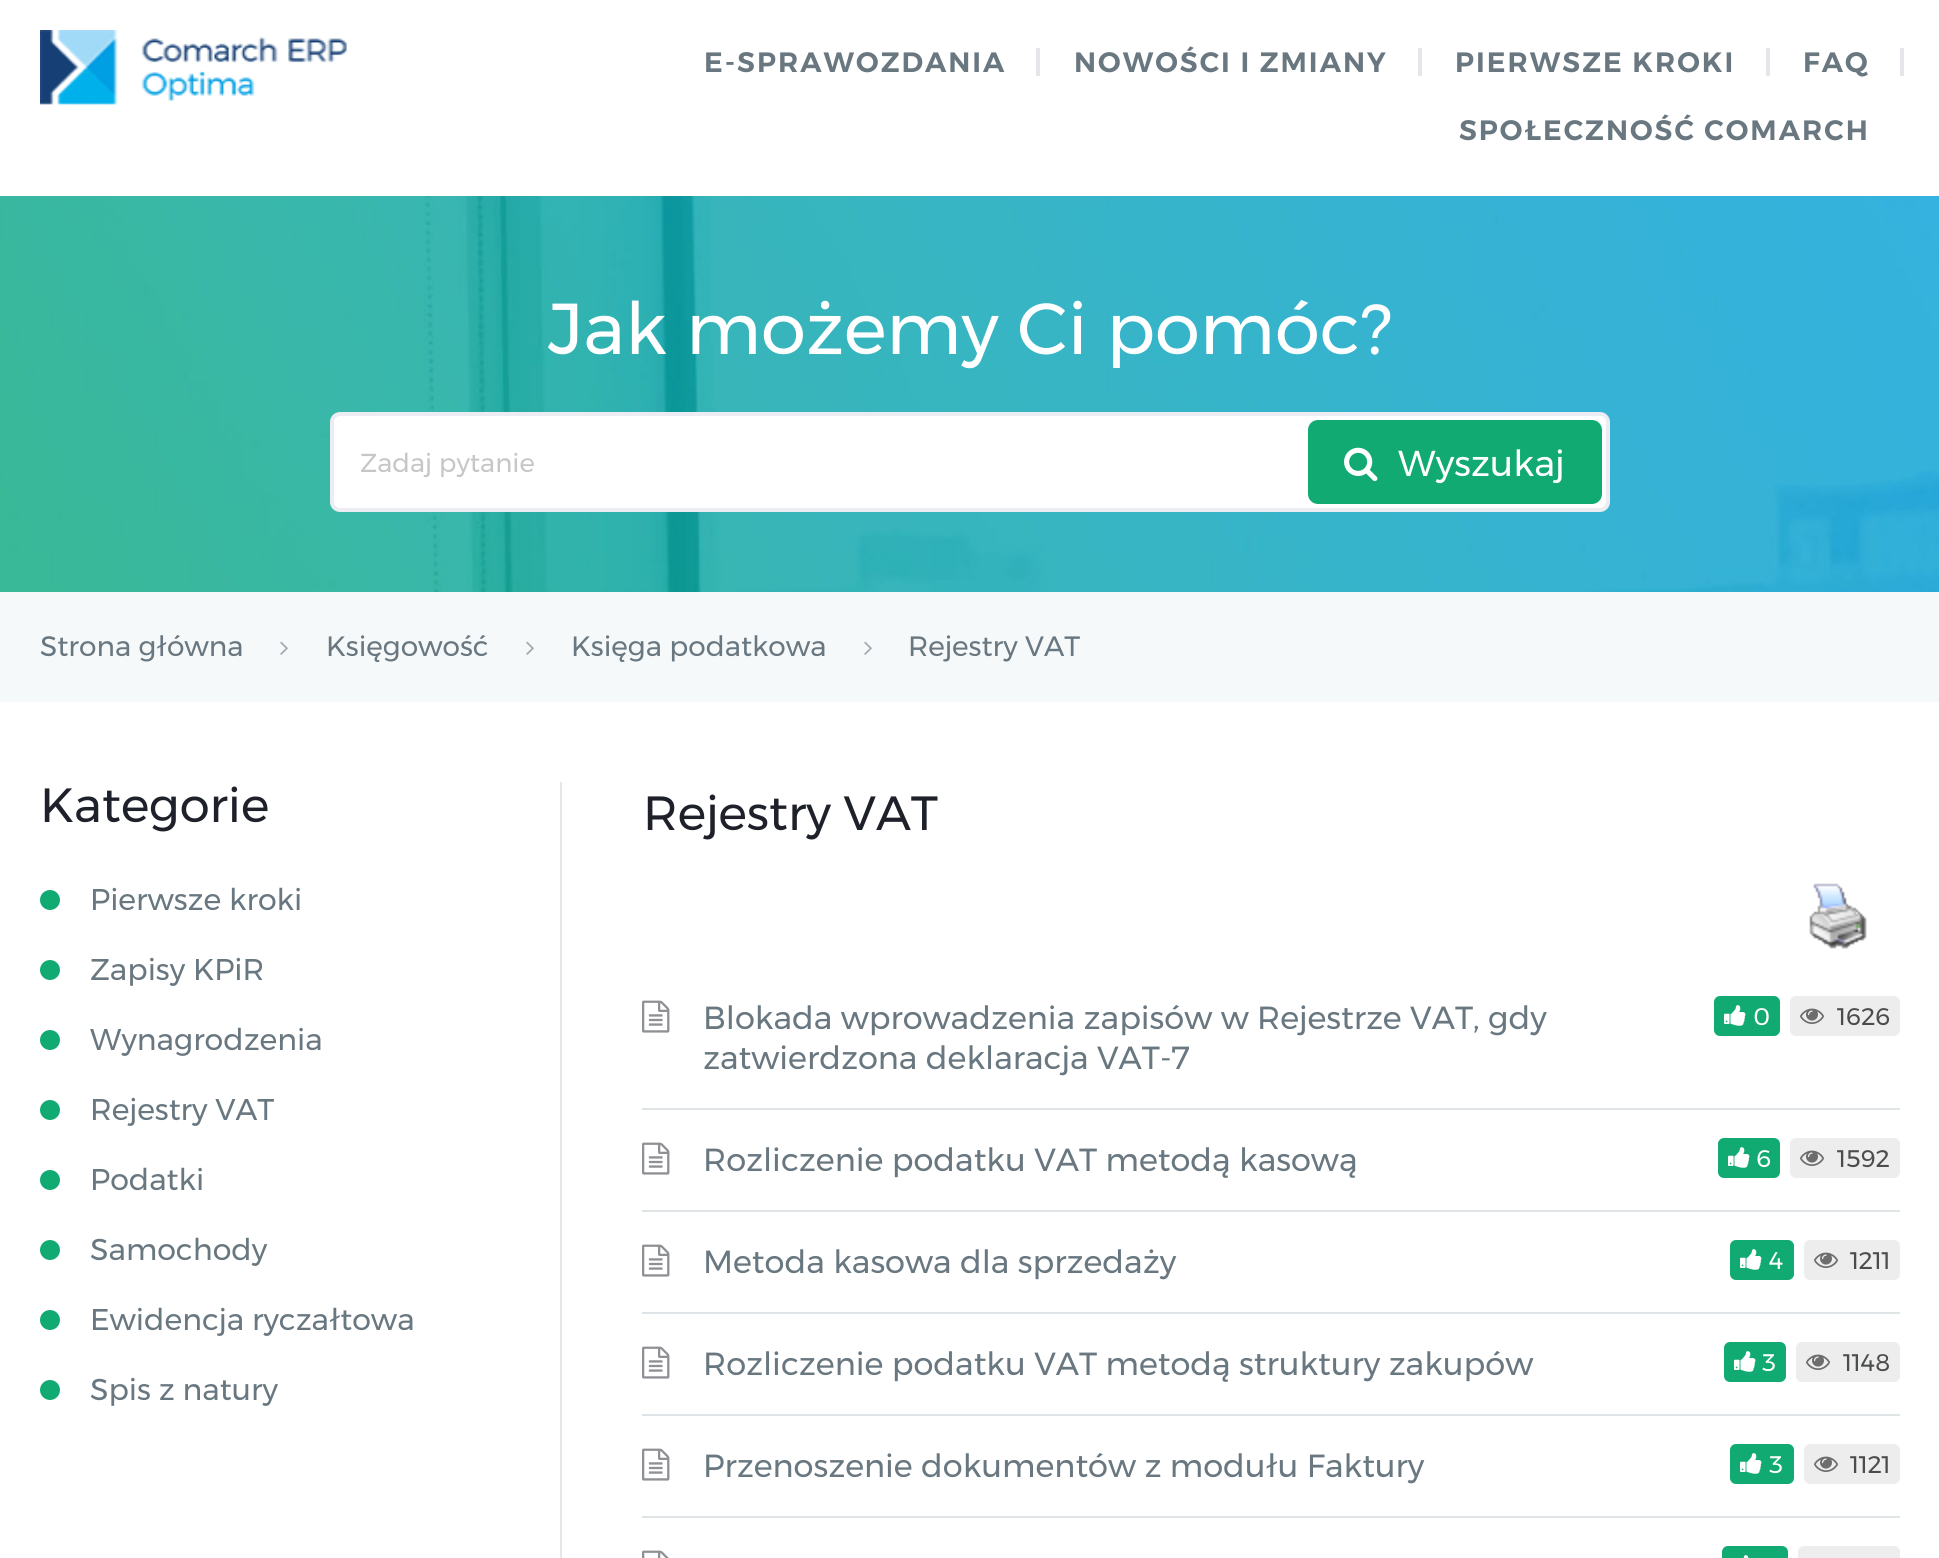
import math
import cairo

surface = cairo.ImageSurface(cairo.FORMAT_RGB24, 1939, 1558)
ctx = cairo.Context(surface)
options = cairo.FontOptions()
options.set_hint_metrics(cairo.HINT_METRICS_OFF)
options.set_hint_style(cairo.HINT_STYLE_NONE)
ctx.set_font_options(options)
ctx.set_miter_limit(4)


def spaced_text(x, y, s, letter, word):
    ctx.move_to(x, y)
    for ch in s:
        ctx.show_text(ch)
        ctx.rel_move_to(letter + word * (ch == ' '), 0)


def round_rect(x, y, w, h, r):
    ctx.new_sub_path()
    for i, (u, v) in enumerate([(x + w - r, y + h - r), (x + r, y + h - r), (x + r, y + r), (x + w - r, y + r)]):
        ctx.arc(u, v, r, i * math.pi / 2, (i + 1) * math.pi / 2)
    ctx.close_path()


def picture(path, x, y, w, h):
    ctx.save()
    ctx.set_source_surface(cairo.ImageSurface.create_from_png(path), x, y)
    ctx.rectangle(x, y, w, h)
    ctx.fill()
    ctx.restore()


ctx.set_source_rgb(1, 1, 1)
ctx.paint()
picture("img1.png", 40, 30, 307, 75)
ctx.select_font_face("Montserrat SemiBold")
ctx.set_font_size(28)
ctx.set_source_rgb(0.412, 0.467, 0.502)
spaced_text(704, 72, "E-SPRAWOZDANIA", 2, 0)
ctx.set_source_rgb(0.898, 0.902, 0.914)
ctx.rectangle(1036, 48, 4, 28)
ctx.fill()
ctx.set_source_rgb(0.412, 0.467, 0.502)
spaced_text(1074, 72, "NOWOŚCI I ZMIANY", 2, 0)
ctx.set_source_rgb(0.898, 0.902, 0.914)
ctx.rectangle(1418, 48, 4, 28)
ctx.fill()
ctx.set_source_rgb(0.412, 0.467, 0.502)
spaced_text(1455, 72, "PIERWSZE KROKI", 2, 0)
ctx.set_source_rgb(0.898, 0.902, 0.914)
ctx.rectangle(1766, 48, 4, 28)
ctx.fill()
ctx.set_source_rgb(0.412, 0.467, 0.502)
spaced_text(1803, 72, "FAQ", 2, 0)
ctx.set_source_rgb(0.898, 0.902, 0.914)
ctx.rectangle(1900, 48, 4, 28)
ctx.fill()
ctx.set_source_rgb(0.412, 0.467, 0.502)
spaced_text(1459, 140, "SPOŁECZNOŚĆ COMARCH", 2, 0)
picture("img2.png", 0, 196, 1939, 396)
ctx.select_font_face("Montserrat")
ctx.set_font_size(72)
ctx.set_source_rgb(1, 1, 1)
ctx.move_to(548, 354)
ctx.show_text("Jak możemy Ci pomóc?")
round_rect(332, 414, 1276, 96, 8)
ctx.fill_preserve()
ctx.set_source_rgb(0.925, 0.929, 0.949)
ctx.set_line_width(4)
ctx.stroke()
ctx.set_font_size(26)
ctx.set_source_rgb(0.78, 0.78, 0.78)
ctx.move_to(360, 472)
ctx.show_text("Zadaj pytanie")
ctx.set_source_rgb(0.067, 0.667, 0.447)
round_rect(1308, 420, 294, 84, 10)
ctx.fill()
picture("img3.png", 1344, 447, 34, 35)
ctx.set_font_size(36)
ctx.set_source_rgb(1, 1, 1)
ctx.move_to(1398, 476)
ctx.show_text("Wyszukaj")
ctx.set_source_rgb(0.961, 0.973, 0.98)
ctx.rectangle(0, 592, 1939, 110)
ctx.fill()
ctx.set_font_size(28)
ctx.set_source_rgb(0.412, 0.467, 0.502)
ctx.move_to(40, 656)
ctx.show_text("Strona główna")
picture("img4.png", 280, 641, 8, 14)
ctx.move_to(326, 656)
ctx.show_text("Księgowość")
picture("img4.png", 526, 641, 8, 14)
ctx.move_to(571, 656)
ctx.show_text("Księga podatkowa")
picture("img4.png", 864, 641, 8, 14)
ctx.move_to(908, 656)
ctx.show_text("Rejestry VAT")
ctx.set_font_size(48)
ctx.set_source_rgb(0.118, 0.129, 0.161)
ctx.move_to(40, 822)
ctx.show_text("Kategorie")
ctx.set_source_rgb(0.067, 0.667, 0.447)
ctx.new_path()
ctx.arc(50, 900, 10, 0, 2 * math.pi)
ctx.fill()
ctx.set_font_size(30)
ctx.set_source_rgb(0.412, 0.467, 0.502)
ctx.move_to(90, 910)
ctx.show_text("Pierwsze kroki")
ctx.set_source_rgb(0.067, 0.667, 0.447)
ctx.new_path()
ctx.arc(50, 970, 10, 0, 2 * math.pi)
ctx.fill()
ctx.set_source_rgb(0.412, 0.467, 0.502)
ctx.move_to(90, 980)
ctx.show_text("Zapisy KPiR")
ctx.set_source_rgb(0.067, 0.667, 0.447)
ctx.new_path()
ctx.arc(50, 1040, 10, 0, 2 * math.pi)
ctx.fill()
ctx.set_source_rgb(0.412, 0.467, 0.502)
ctx.move_to(90, 1050)
ctx.show_text("Wynagrodzenia")
ctx.set_source_rgb(0.067, 0.667, 0.447)
ctx.new_path()
ctx.arc(50, 1110, 10, 0, 2 * math.pi)
ctx.fill()
ctx.set_source_rgb(0.412, 0.467, 0.502)
ctx.move_to(90, 1120)
ctx.show_text("Rejestry VAT")
ctx.set_source_rgb(0.067, 0.667, 0.447)
ctx.new_path()
ctx.arc(50, 1180, 10, 0, 2 * math.pi)
ctx.fill()
ctx.set_source_rgb(0.412, 0.467, 0.502)
ctx.move_to(90, 1190)
ctx.show_text("Podatki")
ctx.set_source_rgb(0.067, 0.667, 0.447)
ctx.new_path()
ctx.arc(50, 1250, 10, 0, 2 * math.pi)
ctx.fill()
ctx.set_source_rgb(0.412, 0.467, 0.502)
ctx.move_to(90, 1260)
ctx.show_text("Samochody")
ctx.set_source_rgb(0.067, 0.667, 0.447)
ctx.new_path()
ctx.arc(50, 1320, 10, 0, 2 * math.pi)
ctx.fill()
ctx.set_source_rgb(0.412, 0.467, 0.502)
ctx.move_to(90, 1330)
ctx.show_text("Ewidencja ryczałtowa")
ctx.set_source_rgb(0.067, 0.667, 0.447)
ctx.new_path()
ctx.arc(50, 1390, 10, 0, 2 * math.pi)
ctx.fill()
ctx.set_source_rgb(0.412, 0.467, 0.502)
ctx.move_to(90, 1400)
ctx.show_text("Spis z natury")
ctx.set_source_rgb(0.898, 0.902, 0.914)
ctx.rectangle(560, 782, 2, 776)
ctx.fill()
ctx.set_font_size(48)
ctx.set_source_rgb(0.118, 0.129, 0.161)
ctx.move_to(643, 830)
ctx.show_text("Rejestry VAT")
picture("img5.png", 1809, 883, 58, 66)
ctx.set_source_rgb(0.875, 0.894, 0.902)
ctx.rectangle(642, 1108, 1258, 2)
ctx.fill()
picture("img6.png", 642, 1000, 28, 33)
ctx.set_font_size(32)
ctx.set_source_rgb(0.412, 0.467, 0.502)
ctx.move_to(703, 1029)
ctx.show_text("Blokada wprowadzenia zapisów w Rejestrze VAT, gdy")
ctx.move_to(703, 1069)
ctx.show_text("zatwierdzona deklaracja VAT-7")
ctx.set_source_rgb(0.067, 0.667, 0.447)
round_rect(1714, 996, 66, 40, 6)
ctx.fill()
picture("img7.png", 1724, 1005, 22, 21)
ctx.set_font_size(24)
ctx.set_source_rgb(1, 1, 1)
ctx.move_to(1753, 1025)
ctx.show_text("0")
ctx.set_source_rgb(0.929, 0.929, 0.929)
round_rect(1790, 996, 110, 40, 6)
ctx.fill()
picture("img8.png", 1800, 1008, 24, 16)
ctx.set_source_rgb(0.294, 0.302, 0.302)
ctx.move_to(1837, 1025)
ctx.show_text("1626")
ctx.set_source_rgb(0.875, 0.894, 0.902)
ctx.rectangle(642, 1210, 1258, 2)
ctx.fill()
picture("img6.png", 642, 1142, 28, 33)
ctx.set_font_size(32)
ctx.set_source_rgb(0.412, 0.467, 0.502)
ctx.move_to(703, 1171)
ctx.show_text("Rozliczenie podatku VAT metodą kasową")
ctx.set_source_rgb(0.067, 0.667, 0.447)
round_rect(1718, 1138, 62, 40, 6)
ctx.fill()
picture("img7.png", 1728, 1147, 22, 21)
ctx.set_font_size(24)
ctx.set_source_rgb(1, 1, 1)
ctx.move_to(1756, 1167)
ctx.show_text("6")
ctx.set_source_rgb(0.929, 0.929, 0.929)
round_rect(1790, 1138, 110, 40, 6)
ctx.fill()
picture("img8.png", 1800, 1150, 24, 16)
ctx.set_source_rgb(0.294, 0.302, 0.302)
ctx.move_to(1837, 1167)
ctx.show_text("1592")
ctx.set_source_rgb(0.875, 0.894, 0.902)
ctx.rectangle(642, 1312, 1258, 2)
ctx.fill()
picture("img6.png", 642, 1244, 28, 33)
ctx.set_font_size(32)
ctx.set_source_rgb(0.412, 0.467, 0.502)
ctx.move_to(703, 1273)
ctx.show_text("Metoda kasowa dla sprzedaży")
ctx.set_source_rgb(0.067, 0.667, 0.447)
round_rect(1730, 1240, 64, 40, 6)
ctx.fill()
picture("img7.png", 1740, 1249, 22, 21)
ctx.set_font_size(24)
ctx.set_source_rgb(1, 1, 1)
ctx.move_to(1769, 1269)
ctx.show_text("4")
ctx.set_source_rgb(0.929, 0.929, 0.929)
round_rect(1804, 1240, 96, 40, 6)
ctx.fill()
picture("img8.png", 1814, 1252, 24, 16)
ctx.set_source_rgb(0.294, 0.302, 0.302)
ctx.move_to(1850, 1269)
ctx.show_text("1211")
ctx.set_source_rgb(0.875, 0.894, 0.902)
ctx.rectangle(642, 1414, 1258, 2)
ctx.fill()
picture("img6.png", 642, 1346, 28, 33)
ctx.set_font_size(32)
ctx.set_source_rgb(0.412, 0.467, 0.502)
ctx.move_to(703, 1375)
ctx.show_text("Rozliczenie podatku VAT metodą struktury zakupów")
ctx.set_source_rgb(0.067, 0.667, 0.447)
round_rect(1724, 1342, 62, 40, 6)
ctx.fill()
picture("img7.png", 1734, 1351, 22, 21)
ctx.set_font_size(24)
ctx.set_source_rgb(1, 1, 1)
ctx.move_to(1762, 1371)
ctx.show_text("3")
ctx.set_source_rgb(0.929, 0.929, 0.929)
round_rect(1796, 1342, 104, 40, 6)
ctx.fill()
picture("img8.png", 1806, 1354, 24, 16)
ctx.set_source_rgb(0.294, 0.302, 0.302)
ctx.move_to(1843, 1371)
ctx.show_text("1148")
ctx.set_source_rgb(0.875, 0.894, 0.902)
ctx.rectangle(642, 1516, 1258, 2)
ctx.fill()
picture("img6.png", 642, 1448, 28, 33)
ctx.set_font_size(32)
ctx.set_source_rgb(0.412, 0.467, 0.502)
ctx.move_to(703, 1477)
ctx.show_text("Przenoszenie dokumentów z modułu Faktury")
ctx.set_source_rgb(0.067, 0.667, 0.447)
round_rect(1730, 1444, 64, 40, 6)
ctx.fill()
picture("img7.png", 1740, 1453, 22, 21)
ctx.set_font_size(24)
ctx.set_source_rgb(1, 1, 1)
ctx.move_to(1769, 1473)
ctx.show_text("3")
ctx.set_source_rgb(0.929, 0.929, 0.929)
round_rect(1804, 1444, 96, 40, 6)
ctx.fill()
picture("img8.png", 1814, 1456, 24, 16)
ctx.set_source_rgb(0.294, 0.302, 0.302)
ctx.move_to(1850, 1473)
ctx.show_text("1121")
picture("img9.png", 642, 1550, 27, 8)
ctx.set_source_rgb(0.067, 0.667, 0.447)
round_rect(1722, 1546, 66, 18, 6)
ctx.fill()
picture("img10.png", 1743, 1555, 6, 3)
ctx.set_source_rgb(0.929, 0.929, 0.929)
round_rect(1798, 1546, 102, 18, 6)
ctx.fill()
surface.write_to_png("page.png")
